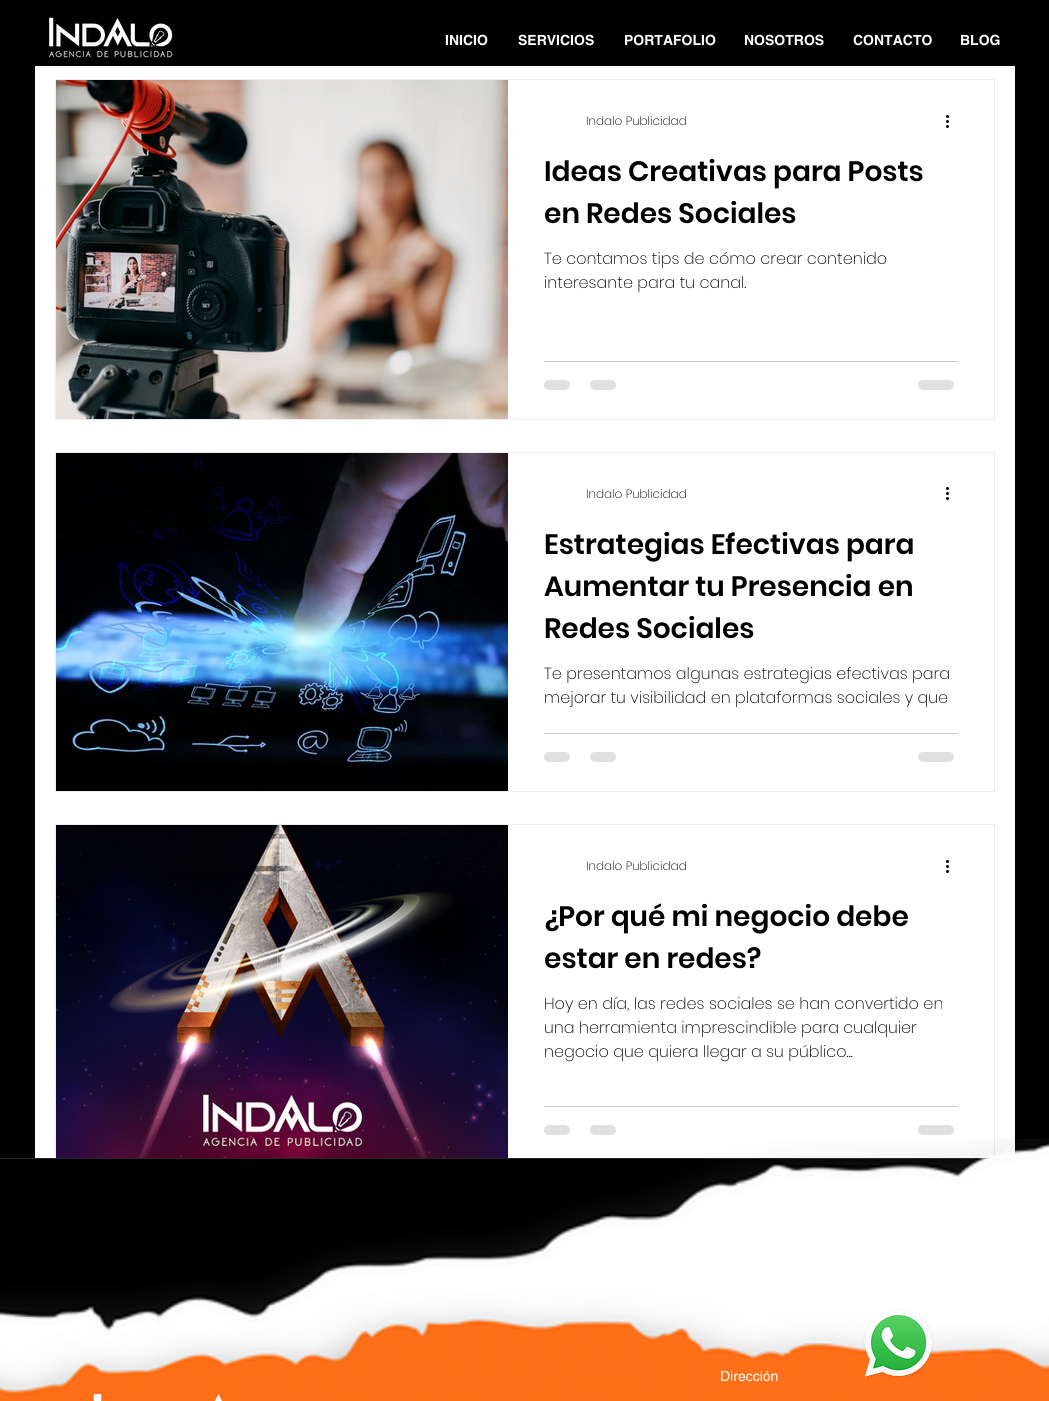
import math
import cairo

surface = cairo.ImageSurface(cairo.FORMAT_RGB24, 1049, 1401)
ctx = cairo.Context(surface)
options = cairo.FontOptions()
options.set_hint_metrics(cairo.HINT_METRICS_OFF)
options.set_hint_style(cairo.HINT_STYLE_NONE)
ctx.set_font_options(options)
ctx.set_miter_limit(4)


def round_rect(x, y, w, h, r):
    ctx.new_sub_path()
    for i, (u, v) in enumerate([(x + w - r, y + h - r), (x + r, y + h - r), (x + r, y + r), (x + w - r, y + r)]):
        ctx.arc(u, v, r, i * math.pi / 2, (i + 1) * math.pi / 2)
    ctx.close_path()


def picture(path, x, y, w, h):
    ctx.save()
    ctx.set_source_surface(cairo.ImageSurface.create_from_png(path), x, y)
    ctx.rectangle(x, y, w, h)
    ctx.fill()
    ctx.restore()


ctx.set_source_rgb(0, 0, 0)
ctx.paint()
picture("img1.png", 49, 17, 124, 41)
ctx.select_font_face("helvetica", cairo.FONT_SLANT_NORMAL, cairo.FONT_WEIGHT_BOLD)
ctx.set_font_size(14)
ctx.set_source_rgb(1, 1, 1)
ctx.move_to(445, 45)
ctx.show_text("INICIO")
ctx.move_to(518, 45)
ctx.show_text("SERVICIOS")
ctx.move_to(624, 45)
ctx.show_text("PORTAFOLIO")
ctx.move_to(744, 45)
ctx.show_text("NOSOTROS")
ctx.move_to(853, 45)
ctx.show_text("CONTACTO")
ctx.move_to(960, 45)
ctx.show_text("BLOG")
ctx.rectangle(35, 66, 980, 1092)
ctx.fill()
ctx.rectangle(55.5, 79.5, 939, 340)
ctx.set_source_rgb(0.933, 0.925, 0.925)
ctx.set_line_width(1)
ctx.stroke()
picture("img2.png", 56, 80, 452, 339)
ctx.select_font_face("Poppins ExtraLight")
ctx.set_font_size(12)
ctx.set_source_rgb(0, 0, 0)
ctx.move_to(586, 125)
ctx.show_text("Indalo Publicidad")
picture("img3.png", 946, 115, 3, 13)
ctx.select_font_face("Poppins SemiBold")
ctx.set_font_size(28)
ctx.move_to(544, 181)
ctx.show_text("Ideas Creativas para Posts")
ctx.move_to(544, 223)
ctx.show_text("en Redes Sociales")
ctx.select_font_face("Poppins ExtraLight")
ctx.set_font_size(16)
ctx.move_to(544, 264)
ctx.show_text("Te contamos tips de cómo crear contenido")
ctx.move_to(544, 288)
ctx.show_text("interesante para tu canal.")
ctx.set_source_rgb(0.8, 0.8, 0.8)
ctx.rectangle(544, 361, 414, 1)
ctx.fill()
ctx.set_source_rgb(0.878, 0.878, 0.878)
round_rect(544, 380, 26, 10, 5)
ctx.fill()
round_rect(590, 380, 26, 10, 5)
ctx.fill()
round_rect(918, 380, 36, 10, 5)
ctx.fill()
ctx.rectangle(55.5, 452.5, 939, 339)
ctx.set_source_rgb(0.933, 0.925, 0.925)
ctx.stroke()
picture("img4.png", 56, 453, 452, 338)
ctx.set_font_size(12)
ctx.set_source_rgb(0, 0, 0)
ctx.move_to(586, 498)
ctx.show_text("Indalo Publicidad")
picture("img3.png", 946, 487, 3, 13)
ctx.select_font_face("Poppins SemiBold")
ctx.set_font_size(28)
ctx.move_to(544, 554)
ctx.show_text("Estrategias Efectivas para")
ctx.move_to(544, 596)
ctx.show_text("Aumentar tu Presencia en")
ctx.move_to(544, 638)
ctx.show_text("Redes Sociales")
ctx.select_font_face("Poppins ExtraLight")
ctx.set_font_size(16)
ctx.move_to(544, 679)
ctx.show_text("Te presentamos algunas estrategias efectivas para")
ctx.move_to(544, 703)
ctx.show_text("mejorar tu visibilidad en plataformas sociales y que")
ctx.set_source_rgb(0.8, 0.8, 0.8)
ctx.rectangle(544, 733, 414, 1)
ctx.fill()
ctx.set_source_rgb(0.878, 0.878, 0.878)
round_rect(544, 752, 26, 10, 5)
ctx.fill()
round_rect(590, 752, 26, 10, 5)
ctx.fill()
round_rect(918, 752, 36, 10, 5)
ctx.fill()
ctx.rectangle(55.5, 824.5, 939, 340)
ctx.set_source_rgb(0.933, 0.925, 0.925)
ctx.stroke()
picture("img5.png", 56, 825, 452, 333)
ctx.set_font_size(12)
ctx.set_source_rgb(0, 0, 0)
ctx.move_to(586, 870)
ctx.show_text("Indalo Publicidad")
picture("img3.png", 946, 860, 3, 13)
ctx.select_font_face("Poppins SemiBold")
ctx.set_font_size(28)
ctx.move_to(544, 926)
ctx.show_text("¿Por qué mi negocio debe")
ctx.move_to(544, 968)
ctx.show_text("estar en redes?")
ctx.select_font_face("Poppins ExtraLight")
ctx.set_font_size(16)
ctx.move_to(544, 1009)
ctx.show_text("Hoy en día, las redes sociales se han convertido en")
ctx.move_to(544, 1033)
ctx.show_text("una herramienta imprescindible para cualquier")
ctx.move_to(544, 1057)
ctx.show_text("negocio que quiera llegar a su público...")
ctx.set_source_rgb(0.8, 0.8, 0.8)
ctx.rectangle(544, 1106, 414, 1)
ctx.fill()
ctx.set_source_rgb(0.878, 0.878, 0.878)
round_rect(544, 1125, 26, 10, 5)
ctx.fill()
round_rect(590, 1125, 26, 10, 5)
ctx.fill()
round_rect(918, 1125, 36, 10, 5)
ctx.fill()
ctx.set_source_rgb(0, 0, 0)
ctx.rectangle(55, 1159, 940, 6)
ctx.fill()
ctx.set_source_rgb(0.149, 0.149, 0.149)
ctx.rectangle(0, 1158, 1021, 1)
ctx.fill()
picture("img6.png", 0, 1139, 1049, 262)
ctx.select_font_face("helvetica")
ctx.set_font_size(14)
ctx.set_source_rgb(1, 1, 1)
ctx.move_to(720, 1381)
ctx.show_text("Dirección")
picture("img7.png", 93, 1393, 129, 8)
picture("img8.png", 863, 1309, 71, 70)
surface.write_to_png("page.png")
